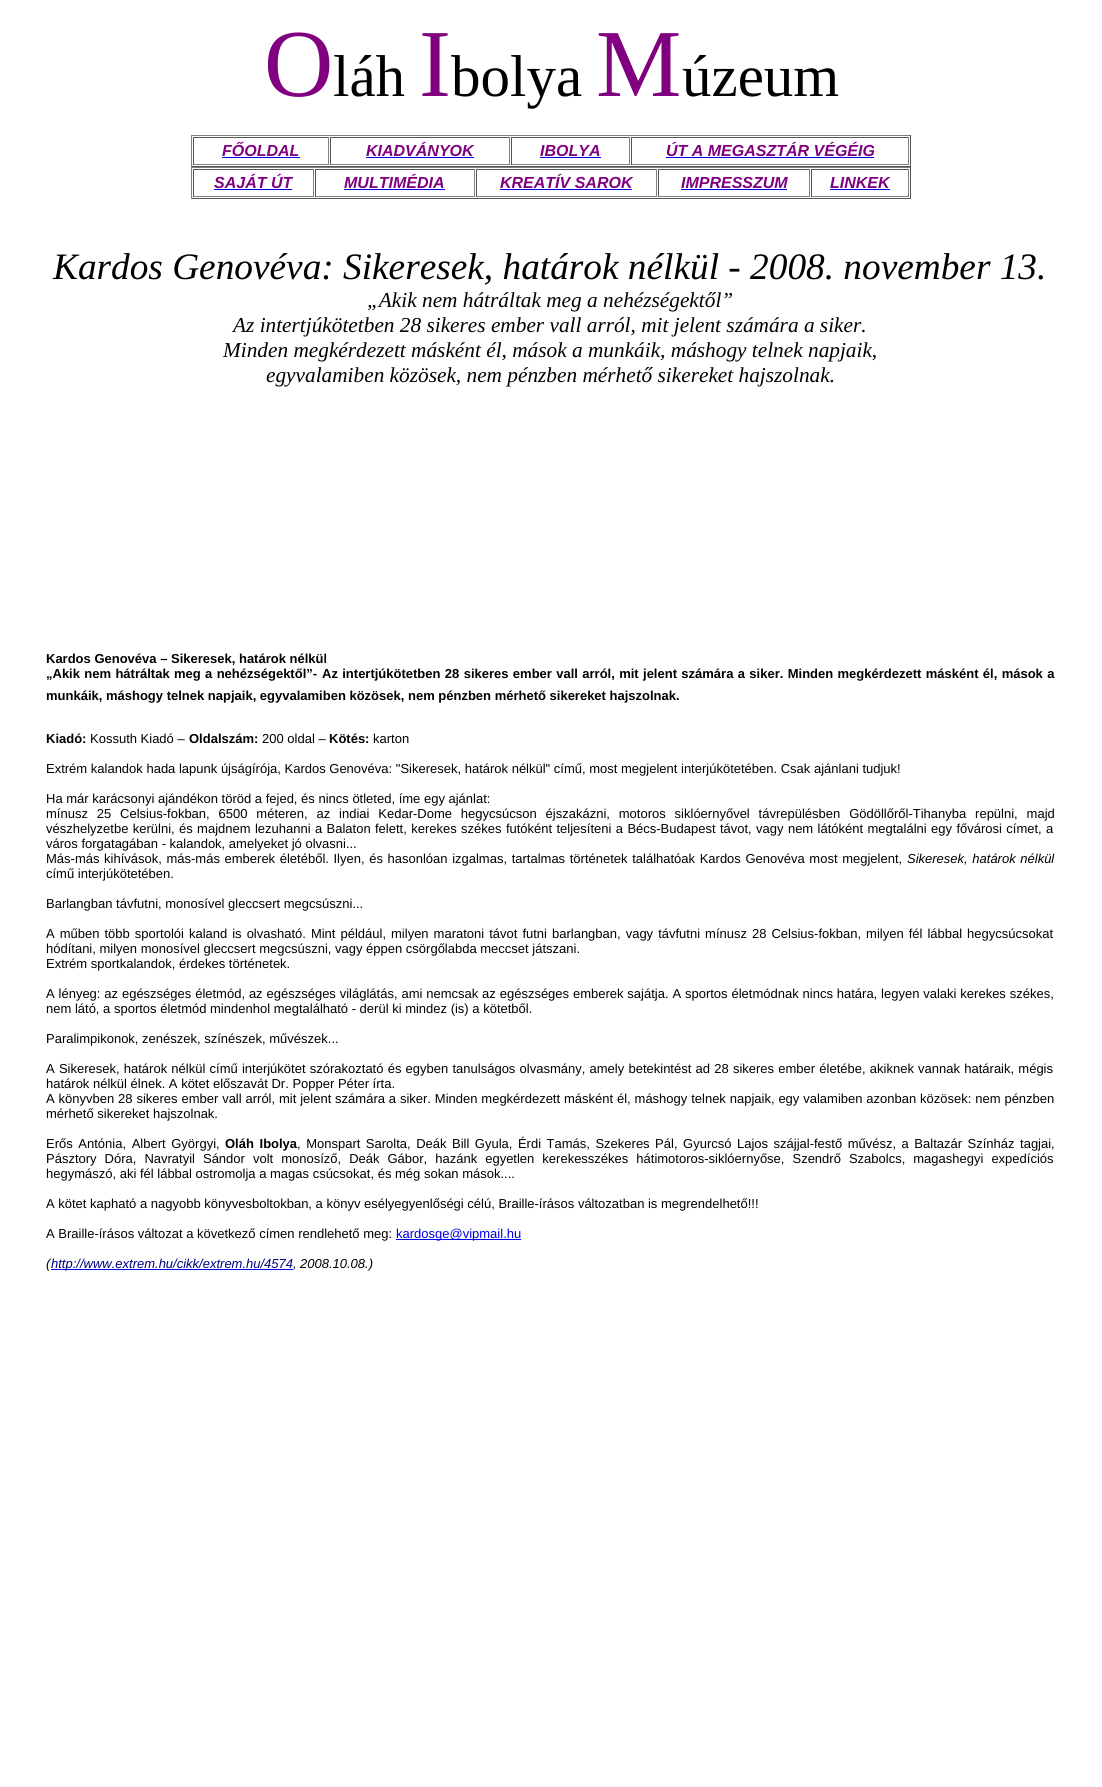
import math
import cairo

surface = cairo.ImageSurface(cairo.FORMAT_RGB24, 1102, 1787)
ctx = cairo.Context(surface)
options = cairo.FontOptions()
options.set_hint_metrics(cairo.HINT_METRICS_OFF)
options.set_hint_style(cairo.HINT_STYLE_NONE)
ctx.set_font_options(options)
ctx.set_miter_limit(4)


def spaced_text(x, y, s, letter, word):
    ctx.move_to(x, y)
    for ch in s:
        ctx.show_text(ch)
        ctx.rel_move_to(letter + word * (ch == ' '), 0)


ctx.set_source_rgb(1, 1, 1)
ctx.paint()
ctx.select_font_face("Liberation Serif")
ctx.set_font_size(96)
ctx.set_source_rgb(0.502, 0, 0.502)
ctx.move_to(264, 96)
ctx.show_text("O")
ctx.set_font_size(59)
ctx.set_source_rgb(0, 0, 0)
ctx.move_to(333, 96)
ctx.show_text("láh")
ctx.set_font_size(96)
ctx.set_source_rgb(0.502, 0, 0.502)
ctx.move_to(419, 96)
ctx.show_text("I")
ctx.set_font_size(59)
ctx.set_source_rgb(0, 0, 0)
ctx.move_to(451, 96)
ctx.show_text("bolya")
ctx.set_font_size(96)
ctx.set_source_rgb(0.502, 0, 0.502)
ctx.move_to(596, 96)
ctx.show_text("M")
ctx.set_font_size(59)
ctx.set_source_rgb(0, 0, 0)
ctx.move_to(682, 96)
ctx.show_text("úzeum")
ctx.set_source_rgb(0.502, 0.502, 0.502)
ctx.rectangle(191, 135, 720, 1)
ctx.fill()
ctx.set_source_rgb(0.333, 0.333, 0.333)
ctx.rectangle(910, 135, 1, 32)
ctx.fill()
ctx.rectangle(191, 166, 720, 1)
ctx.fill()
ctx.set_source_rgb(0.502, 0.502, 0.502)
ctx.rectangle(191, 135, 1, 32)
ctx.fill()
ctx.set_source_rgb(0.333, 0.333, 0.333)
ctx.rectangle(193, 137, 136, 1)
ctx.fill()
ctx.set_source_rgb(0.502, 0.502, 0.502)
ctx.rectangle(328, 137, 1, 28)
ctx.fill()
ctx.rectangle(193, 164, 136, 1)
ctx.fill()
ctx.set_source_rgb(0.333, 0.333, 0.333)
ctx.rectangle(193, 137, 1, 28)
ctx.fill()
ctx.select_font_face("Liberation Sans", cairo.FONT_SLANT_ITALIC, cairo.FONT_WEIGHT_BOLD)
ctx.set_font_size(16)
ctx.set_source_rgb(0.502, 0, 0.502)
ctx.move_to(222, 156)
ctx.show_text("FŐOLDAL")
ctx.set_source_rgb(0, 0, 0.933)
ctx.rectangle(222, 157, 78, 1)
ctx.fill()
ctx.set_source_rgb(0.333, 0.333, 0.333)
ctx.rectangle(330, 137, 180, 1)
ctx.fill()
ctx.set_source_rgb(0.502, 0.502, 0.502)
ctx.rectangle(509, 137, 1, 28)
ctx.fill()
ctx.rectangle(330, 164, 180, 1)
ctx.fill()
ctx.set_source_rgb(0.333, 0.333, 0.333)
ctx.rectangle(330, 137, 1, 28)
ctx.fill()
ctx.set_source_rgb(0.502, 0, 0.502)
ctx.move_to(366, 156)
ctx.show_text("KIADVÁNYOK")
ctx.set_source_rgb(0, 0, 0.933)
ctx.rectangle(366, 157, 108, 1)
ctx.fill()
ctx.set_source_rgb(0.333, 0.333, 0.333)
ctx.rectangle(511, 137, 119, 1)
ctx.fill()
ctx.set_source_rgb(0.502, 0.502, 0.502)
ctx.rectangle(629, 137, 1, 28)
ctx.fill()
ctx.rectangle(511, 164, 119, 1)
ctx.fill()
ctx.set_source_rgb(0.333, 0.333, 0.333)
ctx.rectangle(511, 137, 1, 28)
ctx.fill()
ctx.set_source_rgb(0.502, 0, 0.502)
ctx.move_to(540, 156)
ctx.show_text("IBOLYA")
ctx.set_source_rgb(0, 0, 0.933)
ctx.rectangle(540, 157, 61, 1)
ctx.fill()
ctx.set_source_rgb(0.333, 0.333, 0.333)
ctx.rectangle(631, 137, 278, 1)
ctx.fill()
ctx.set_source_rgb(0.502, 0.502, 0.502)
ctx.rectangle(908, 137, 1, 28)
ctx.fill()
ctx.rectangle(631, 164, 278, 1)
ctx.fill()
ctx.set_source_rgb(0.333, 0.333, 0.333)
ctx.rectangle(631, 137, 1, 28)
ctx.fill()
ctx.set_source_rgb(0.502, 0, 0.502)
ctx.move_to(666, 156)
ctx.show_text("ÚT A MEGASZTÁR VÉGÉIG")
ctx.set_source_rgb(0, 0, 0.933)
ctx.rectangle(666, 157, 208, 1)
ctx.fill()
ctx.set_source_rgb(0.502, 0.502, 0.502)
ctx.rectangle(191, 167, 720, 1)
ctx.fill()
ctx.set_source_rgb(0.333, 0.333, 0.333)
ctx.rectangle(910, 167, 1, 32)
ctx.fill()
ctx.rectangle(191, 198, 720, 1)
ctx.fill()
ctx.set_source_rgb(0.502, 0.502, 0.502)
ctx.rectangle(191, 167, 1, 32)
ctx.fill()
ctx.set_source_rgb(0.333, 0.333, 0.333)
ctx.rectangle(193, 169, 121, 1)
ctx.fill()
ctx.set_source_rgb(0.502, 0.502, 0.502)
ctx.rectangle(313, 169, 1, 28)
ctx.fill()
ctx.rectangle(193, 196, 121, 1)
ctx.fill()
ctx.set_source_rgb(0.333, 0.333, 0.333)
ctx.rectangle(193, 169, 1, 28)
ctx.fill()
ctx.set_source_rgb(0.502, 0, 0.502)
ctx.move_to(214, 188)
ctx.show_text("SAJÁT ÚT")
ctx.set_source_rgb(0, 0, 0.933)
ctx.rectangle(214, 189, 78, 1)
ctx.fill()
ctx.set_source_rgb(0.333, 0.333, 0.333)
ctx.rectangle(315, 169, 160, 1)
ctx.fill()
ctx.set_source_rgb(0.502, 0.502, 0.502)
ctx.rectangle(474, 169, 1, 28)
ctx.fill()
ctx.rectangle(315, 196, 160, 1)
ctx.fill()
ctx.set_source_rgb(0.333, 0.333, 0.333)
ctx.rectangle(315, 169, 1, 28)
ctx.fill()
ctx.set_source_rgb(0.502, 0, 0.502)
ctx.move_to(344, 188)
ctx.show_text("MULTIMÉDIA")
ctx.set_source_rgb(0, 0, 0.933)
ctx.rectangle(344, 189, 101, 1)
ctx.fill()
ctx.set_source_rgb(0.333, 0.333, 0.333)
ctx.rectangle(476, 169, 181, 1)
ctx.fill()
ctx.set_source_rgb(0.502, 0.502, 0.502)
ctx.rectangle(656, 169, 1, 28)
ctx.fill()
ctx.rectangle(476, 196, 181, 1)
ctx.fill()
ctx.set_source_rgb(0.333, 0.333, 0.333)
ctx.rectangle(476, 169, 1, 28)
ctx.fill()
ctx.set_source_rgb(0.502, 0, 0.502)
ctx.move_to(500, 188)
ctx.show_text("KREATÍV SAROK")
ctx.set_source_rgb(0, 0, 0.933)
ctx.rectangle(500, 189, 132, 1)
ctx.fill()
ctx.set_source_rgb(0.333, 0.333, 0.333)
ctx.rectangle(658, 169, 152, 1)
ctx.fill()
ctx.set_source_rgb(0.502, 0.502, 0.502)
ctx.rectangle(809, 169, 1, 28)
ctx.fill()
ctx.rectangle(658, 196, 152, 1)
ctx.fill()
ctx.set_source_rgb(0.333, 0.333, 0.333)
ctx.rectangle(658, 169, 1, 28)
ctx.fill()
ctx.set_source_rgb(0.502, 0, 0.502)
ctx.move_to(681, 188)
ctx.show_text("IMPRESSZUM")
ctx.set_source_rgb(0, 0, 0.933)
ctx.rectangle(681, 189, 106, 1)
ctx.fill()
ctx.set_source_rgb(0.333, 0.333, 0.333)
ctx.rectangle(811, 169, 98, 1)
ctx.fill()
ctx.set_source_rgb(0.502, 0.502, 0.502)
ctx.rectangle(908, 169, 1, 28)
ctx.fill()
ctx.rectangle(811, 196, 98, 1)
ctx.fill()
ctx.set_source_rgb(0.333, 0.333, 0.333)
ctx.rectangle(811, 169, 1, 28)
ctx.fill()
ctx.set_source_rgb(0.502, 0, 0.502)
ctx.move_to(830, 188)
ctx.show_text("LINKEK")
ctx.set_source_rgb(0, 0, 0.933)
ctx.rectangle(830, 189, 60, 1)
ctx.fill()
ctx.select_font_face("Liberation Serif", cairo.FONT_SLANT_ITALIC)
ctx.set_font_size(37.3)
ctx.set_source_rgb(0, 0, 0)
ctx.move_to(53, 279)
ctx.show_text("Kardos Genovéva: Sikeresek, határok nélkül - 2008. november 13.")
ctx.set_font_size(21.3)
ctx.move_to(367, 307)
ctx.show_text("„Akik nem hátráltak meg a nehézségektől”")
ctx.move_to(233, 332)
ctx.show_text("Az intertjúkötetben 28 sikeres ember vall arról, mit jelent számára a siker.")
ctx.move_to(223, 357)
ctx.show_text("Minden megkérdezett másként él, mások a munkáik, máshogy telnek napjaik,")
ctx.move_to(266, 382)
ctx.show_text("egyvalamiben közösek, nem pénzben mérhető sikereket hajszolnak.")
ctx.select_font_face("Liberation Sans", cairo.FONT_SLANT_NORMAL, cairo.FONT_WEIGHT_BOLD)
ctx.set_font_size(13)
ctx.move_to(46, 663)
ctx.show_text("Kardos Genovéva – Sikeresek, határok nélkül")
spaced_text(46, 678, "„Akik nem hátráltak meg a nehézségektől”-", 0, 0.75)
spaced_text(322, 678, "Az intertjúkötetben 28 sikeres ember vall arról, mit jelent számára a siker. Minden megkérdezett másként él, mások a", 0, 0.75)
ctx.move_to(46, 700)
ctx.show_text("munkáik, máshogy telnek napjaik, egyvalamiben közösek, nem pénzben mérhető sikereket hajszolnak.")
ctx.move_to(46, 743)
ctx.show_text("Kiadó:")
ctx.select_font_face("Liberation Sans")
ctx.move_to(90, 743)
ctx.show_text("Kossuth Kiadó –")
ctx.select_font_face("Liberation Sans", cairo.FONT_SLANT_NORMAL, cairo.FONT_WEIGHT_BOLD)
ctx.move_to(189, 743)
ctx.show_text("Oldalszám:")
ctx.select_font_face("Liberation Sans")
ctx.move_to(262, 743)
ctx.show_text("200 oldal –")
ctx.select_font_face("Liberation Sans", cairo.FONT_SLANT_NORMAL, cairo.FONT_WEIGHT_BOLD)
ctx.move_to(329, 743)
ctx.show_text("Kötés:")
ctx.select_font_face("Liberation Sans")
ctx.move_to(373, 743)
ctx.show_text("karton")
ctx.move_to(46, 773)
ctx.show_text("Extrém kalandok hada lapunk újságírója, Kardos Genovéva: \"Sikeresek, határok nélkül\" című, most megjelent interjúkötetében. Csak ajánlani tudjuk!")
ctx.move_to(46, 803)
ctx.show_text("Ha már karácsonyi ajándékon töröd a fejed, és nincs ötleted, íme egy ajánlat:")
spaced_text(46, 818, "mínusz 25 Celsius-fokban, 6500 méteren, az indiai Kedar-Dome hegycsúcson éjszakázni, motoros siklóernyővel távrepülésben Gödöllőről-Tihanyba repülni, majd", 0, 5.25)
spaced_text(46, 833, "vészhelyzetbe kerülni, és majdnem lezuhanni a Balaton felett, kerekes székes futóként teljesíteni a Bécs-Budapest távot, vagy nem látóként megtalálni egy fővárosi címet, a", 0, 0.75)
ctx.move_to(46, 848)
ctx.show_text("város forgatagában - kalandok, amelyeket jó olvasni...")
spaced_text(46, 863, "Más-más kihívások, más-más emberek életéből. Ilyen, és hasonlóan izgalmas, tartalmas történetek találhatóak Kardos Genovéva most megjelent,", 0, 1)
ctx.select_font_face("Liberation Sans", cairo.FONT_SLANT_ITALIC)
spaced_text(907, 863, "Sikeresek, határok nélkül", 0, 1)
ctx.select_font_face("Liberation Sans")
ctx.move_to(46, 878)
ctx.show_text("című interjúkötetében.")
ctx.move_to(46, 908)
ctx.show_text("Barlangban távfutni, monosível gleccsert megcsúszni...")
spaced_text(46, 938, "A műben több sportolói kaland is olvasható. Mint például, milyen maratoni távot futni barlangban, vagy távfutni mínusz 28 Celsius-fokban, milyen fél lábbal hegycsúcsokat", 0, 1.4)
ctx.move_to(46, 953)
ctx.show_text("hódítani, milyen monosível gleccsert megcsúszni, vagy éppen csörgőlabda meccset játszani.")
ctx.move_to(46, 968)
ctx.show_text("Extrém sportkalandok, érdekes történetek.")
spaced_text(46, 998, "A lényeg: az egészséges életmód, az egészséges világlátás, ami nemcsak az egészséges emberek sajátja. A sportos életmódnak nincs határa, legyen valaki kerekes székes,", 0, 0.25)
ctx.move_to(46, 1013)
ctx.show_text("nem látó, a sportos életmód mindenhol megtalálható - derül ki mindez (is) a kötetből.")
ctx.move_to(46, 1043)
ctx.show_text("Paralimpikonok, zenészek, színészek, művészek...")
spaced_text(46, 1073, "A Sikeresek, határok nélkül című interjúkötet szórakoztató és egyben tanulságos olvasmány, amely betekintést ad 28 sikeres ember életébe, akiknek vannak határaik, mégis", 0, 0.6)
ctx.move_to(46, 1088)
ctx.show_text("határok nélkül élnek. A kötet előszavát Dr. Popper Péter írta.")
spaced_text(46, 1103, "A könyvben 28 sikeres ember vall arról, mit jelent számára a siker. Minden megkérdezett másként él, máshogy telnek napjaik, egy valamiben azonban közösek: nem pénzben", 0, 0.25)
ctx.move_to(46, 1118)
ctx.show_text("mérhető sikereket hajszolnak.")
spaced_text(46, 1148, "Erős Antónia, Albert Györgyi,", 0, 2)
ctx.select_font_face("Liberation Sans", cairo.FONT_SLANT_NORMAL, cairo.FONT_WEIGHT_BOLD)
spaced_text(225, 1148, "Oláh Ibolya", 0, 2)
ctx.select_font_face("Liberation Sans")
spaced_text(297, 1148, ", Monspart Sarolta, Deák Bill Gyula, Érdi Tamás, Szekeres Pál, Gyurcsó Lajos szájjal-festő művész, a Baltazár Színház tagjai,", 0, 1.9)
spaced_text(46, 1163, "Pásztory Dóra, Navratyil Sándor volt monosíző, Deák Gábor, hazánk egyetlen kerekesszékes hátimotoros-siklóernyőse, Szendrő Szabolcs, magashegyi expedíciós", 0, 4.4)
ctx.move_to(46, 1178)
ctx.show_text("hegymászó, aki fél lábbal ostromolja a magas csúcsokat, és még sokan mások....")
ctx.move_to(46, 1208)
ctx.show_text("A kötet kapható a nagyobb könyvesboltokban, a könyv esélyegyenlőségi célú, Braille-írásos változatban is megrendelhető!!!")
ctx.move_to(46, 1238)
ctx.show_text("A Braille-írásos változat a következő címen rendlehető meg:")
ctx.set_source_rgb(0, 0, 0.933)
ctx.rectangle(396, 1239, 125, 1)
ctx.fill()
ctx.move_to(396, 1238)
ctx.show_text("kardosge@vipmail.hu")
ctx.select_font_face("Liberation Sans", cairo.FONT_SLANT_ITALIC)
ctx.set_source_rgb(0, 0, 0)
ctx.move_to(46, 1268)
ctx.show_text("(")
ctx.set_source_rgb(0, 0, 0.933)
ctx.rectangle(51, 1269, 242, 1)
ctx.fill()
ctx.set_source_rgb(0, 0, 0.502)
ctx.move_to(51, 1268)
ctx.show_text("http://www.extrem.hu/cikk/extrem.hu/4574,")
ctx.set_source_rgb(0, 0, 0)
ctx.move_to(300, 1268)
ctx.show_text("2008.10.08.)")
surface.write_to_png("page.png")
